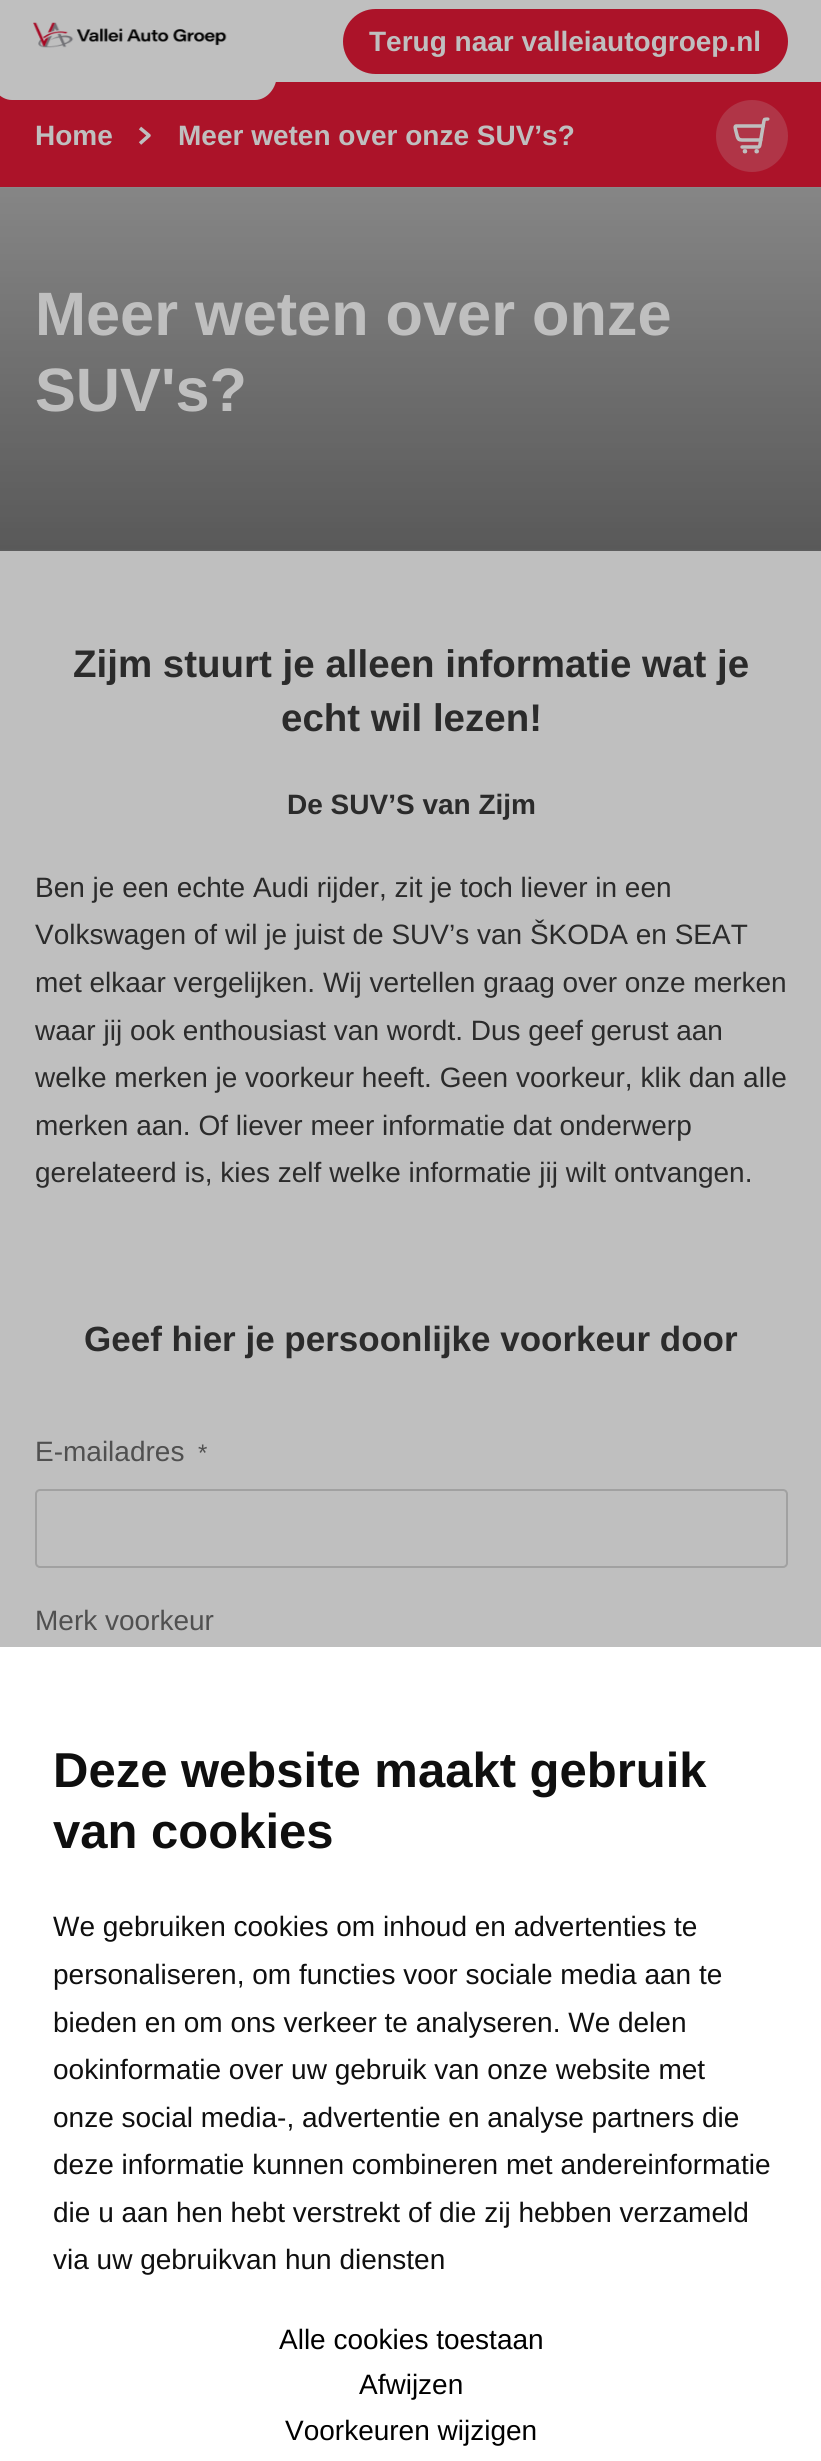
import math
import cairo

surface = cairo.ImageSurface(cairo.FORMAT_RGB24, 821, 2461)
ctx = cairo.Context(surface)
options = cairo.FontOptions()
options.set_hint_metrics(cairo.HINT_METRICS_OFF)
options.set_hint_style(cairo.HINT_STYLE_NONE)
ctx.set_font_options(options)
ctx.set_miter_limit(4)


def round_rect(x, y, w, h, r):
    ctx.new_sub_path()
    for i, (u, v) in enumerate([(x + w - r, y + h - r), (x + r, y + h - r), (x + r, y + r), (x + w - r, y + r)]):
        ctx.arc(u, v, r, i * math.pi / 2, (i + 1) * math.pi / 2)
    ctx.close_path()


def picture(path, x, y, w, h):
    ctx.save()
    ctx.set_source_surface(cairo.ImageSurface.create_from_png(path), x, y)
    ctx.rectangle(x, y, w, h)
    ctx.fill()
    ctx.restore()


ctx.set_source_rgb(0.749, 0.749, 0.749)
ctx.paint()
ctx.set_source_rgb(0.675, 0.075, 0.161)
ctx.rectangle(0, 82, 821, 105)
ctx.fill()
ctx.set_source_rgb(0.749, 0.749, 0.749)
ctx.new_path()
ctx.move_to(-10, -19)
ctx.line_to(277, -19)
ctx.line_to(277, 74)
ctx.curve_to(277, 88, 267, 100, 255, 100)
ctx.line_to(12, 100)
ctx.curve_to(0, 100, -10, 88, -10, 74)
ctx.close_path()
ctx.fill()
picture("img1.png", 33, 22, 194, 26)
ctx.set_source_rgb(0.675, 0.075, 0.161)
round_rect(343, 9, 445, 65, 32.5)
ctx.fill()
ctx.select_font_face("Liberation Sans", cairo.FONT_SLANT_NORMAL, cairo.FONT_WEIGHT_BOLD)
ctx.set_font_size(28)
ctx.set_source_rgb(0.749, 0.749, 0.749)
ctx.move_to(369, 51)
ctx.show_text("Terug naar valleiautogroep.nl")
ctx.move_to(35, 145)
ctx.show_text("Home")
ctx.new_path()
ctx.move_to(140, 128)
ctx.line_to(149, 135.5)
ctx.line_to(140, 143.5)
ctx.set_line_width(3.5)
ctx.set_line_join(cairo.LINE_JOIN_ROUND)
ctx.stroke()
ctx.move_to(178, 145)
ctx.show_text("Meer weten over onze SUV’s?")
ctx.set_source_rgb(0.69, 0.208, 0.278)
ctx.new_path()
ctx.arc(752, 136, 36, 0, 2 * math.pi)
ctx.fill()
picture("img2.png", 733, 117, 37, 37)
ctx.set_source_rgb(0.725, 0.729, 0.733)
ctx.rectangle(0, 187, 821, 364)
ctx.fill()
picture("img3.png", 0, 187, 821, 363)
gradient = cairo.LinearGradient(411, 187, 411, 551)
gradient.add_color_stop_rgba(0, 0, 0, 0, 0.25)
gradient.add_color_stop_rgba(1, 0, 0, 0, 0.5)
ctx.set_source(gradient)
ctx.rectangle(0, 187, 821, 364)
ctx.fill()
ctx.set_font_size(61.25)
ctx.set_source_rgb(0.749, 0.749, 0.749)
ctx.move_to(35, 335)
ctx.show_text("Meer weten over onze")
ctx.move_to(35, 411)
ctx.show_text("SUV's?")
ctx.set_font_size(38.5)
ctx.set_source_rgb(0.169, 0.169, 0.169)
ctx.move_to(73, 677)
ctx.show_text("Zijm stuurt je alleen informatie wat je")
ctx.move_to(281, 731)
ctx.show_text("echt wil lezen!")
ctx.set_font_size(28)
ctx.move_to(287, 814)
ctx.show_text("De SUV’S van Zijm")
ctx.select_font_face("Liberation Sans")
ctx.move_to(35, 897)
ctx.show_text("Ben je een echte Audi rijder, zit je toch liever in een")
ctx.move_to(35, 944)
ctx.show_text("Volkswagen of wil je juist de SUV’s van ŠKODA en SEAT")
ctx.move_to(35, 992)
ctx.show_text("met elkaar vergelijken. Wij vertellen graag over onze merken")
ctx.move_to(35, 1040)
ctx.show_text("waar jij ook enthousiast van wordt. Dus geef gerust aan")
ctx.move_to(35, 1087)
ctx.show_text("welke merken je voorkeur heeft. Geen voorkeur, klik dan alle")
ctx.move_to(35, 1135)
ctx.show_text("merken aan. Of liever meer informatie dat onderwerp")
ctx.move_to(35, 1182)
ctx.show_text("gerelateerd is, kies zelf welke informatie jij wilt ontvangen.")
ctx.select_font_face("Liberation Sans", cairo.FONT_SLANT_NORMAL, cairo.FONT_WEIGHT_BOLD)
ctx.set_font_size(35)
ctx.move_to(84, 1351)
ctx.show_text("Geef hier je persoonlijke voorkeur door")
ctx.select_font_face("Liberation Sans")
ctx.set_font_size(28)
ctx.set_source_rgb(0.314, 0.314, 0.314)
ctx.move_to(35, 1461)
ctx.show_text("E-mailadres")
ctx.set_font_size(24)
ctx.move_to(198, 1461)
ctx.show_text("*")
round_rect(36, 1490, 751, 77, 4)
ctx.set_source_rgb(0.631, 0.631, 0.631)
ctx.set_line_width(2)
ctx.set_line_join(cairo.LINE_JOIN_MITER)
ctx.stroke()
ctx.set_font_size(28)
ctx.set_source_rgb(0.314, 0.314, 0.314)
ctx.move_to(35, 1630)
ctx.show_text("Merk voorkeur")
ctx.set_source_rgb(1, 1, 1)
ctx.rectangle(0, 1647, 821, 814)
ctx.fill()
ctx.select_font_face("Liberation Sans", cairo.FONT_SLANT_NORMAL, cairo.FONT_WEIGHT_BOLD)
ctx.set_font_size(49)
ctx.set_source_rgb(0.059, 0.059, 0.059)
ctx.move_to(53, 1787)
ctx.show_text("Deze website maakt gebruik")
ctx.move_to(53, 1848)
ctx.show_text("van cookies")
ctx.select_font_face("Liberation Sans")
ctx.set_font_size(28)
ctx.move_to(53, 1936)
ctx.show_text("We gebruiken cookies om inhoud en advertenties te")
ctx.move_to(53, 1984)
ctx.show_text("personaliseren, om functies voor sociale media aan te")
ctx.move_to(53, 2032)
ctx.show_text("bieden en om ons verkeer te analyseren. We delen")
ctx.move_to(53, 2079)
ctx.show_text("ookinformatie over uw gebruik van onze website met")
ctx.move_to(53, 2127)
ctx.show_text("onze social media-, advertentie en analyse partners die")
ctx.move_to(53, 2174)
ctx.show_text("deze informatie kunnen combineren met andereinformatie")
ctx.move_to(53, 2222)
ctx.show_text("die u aan hen hebt verstrekt of die zij hebben verzameld")
ctx.move_to(53, 2269)
ctx.show_text("via uw gebruikvan hun diensten")
ctx.set_source_rgb(0, 0, 0)
ctx.move_to(279, 2349)
ctx.show_text("Alle cookies toestaan")
ctx.move_to(359, 2394)
ctx.show_text("Afwijzen")
ctx.move_to(285, 2440)
ctx.show_text("Voorkeuren wijzigen")
surface.write_to_png("page.png")
